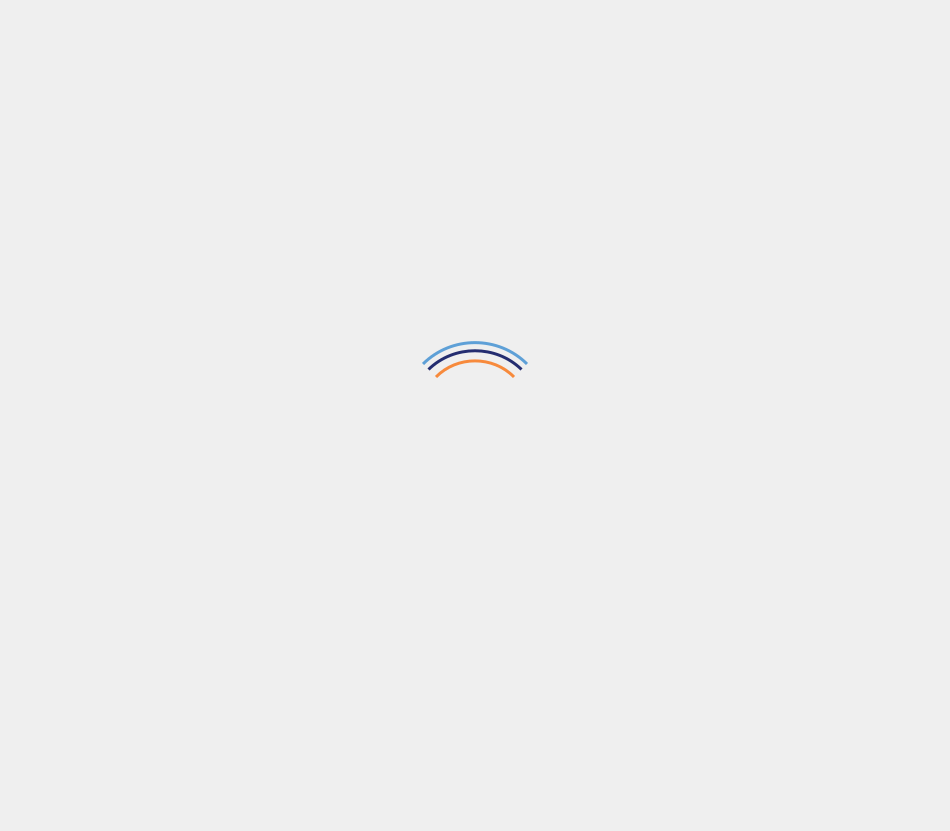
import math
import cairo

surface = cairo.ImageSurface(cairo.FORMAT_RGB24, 950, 831)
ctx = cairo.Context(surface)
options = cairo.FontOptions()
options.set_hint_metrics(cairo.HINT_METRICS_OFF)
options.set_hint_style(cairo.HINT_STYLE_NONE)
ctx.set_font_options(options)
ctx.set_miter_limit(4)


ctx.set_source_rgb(0.937, 0.937, 0.937)
ctx.paint()
ctx.new_path()
ctx.move_to(423, 364)
ctx.curve_to(451.5, 335.5, 498.5, 335.5, 527, 364)
ctx.set_source_rgb(0.369, 0.627, 0.843)
ctx.set_line_width(3)
ctx.stroke()
ctx.new_path()
ctx.move_to(428.5, 369.5)
ctx.curve_to(454, 344.5, 496, 344.5, 521.5, 369.5)
ctx.set_source_rgb(0.141, 0.176, 0.439)
ctx.stroke()
ctx.new_path()
ctx.move_to(436, 377)
ctx.curve_to(457, 355.5, 493, 355.5, 514, 377)
ctx.set_source_rgb(0.965, 0.541, 0.235)
ctx.stroke()
surface.write_to_png("page.png")
